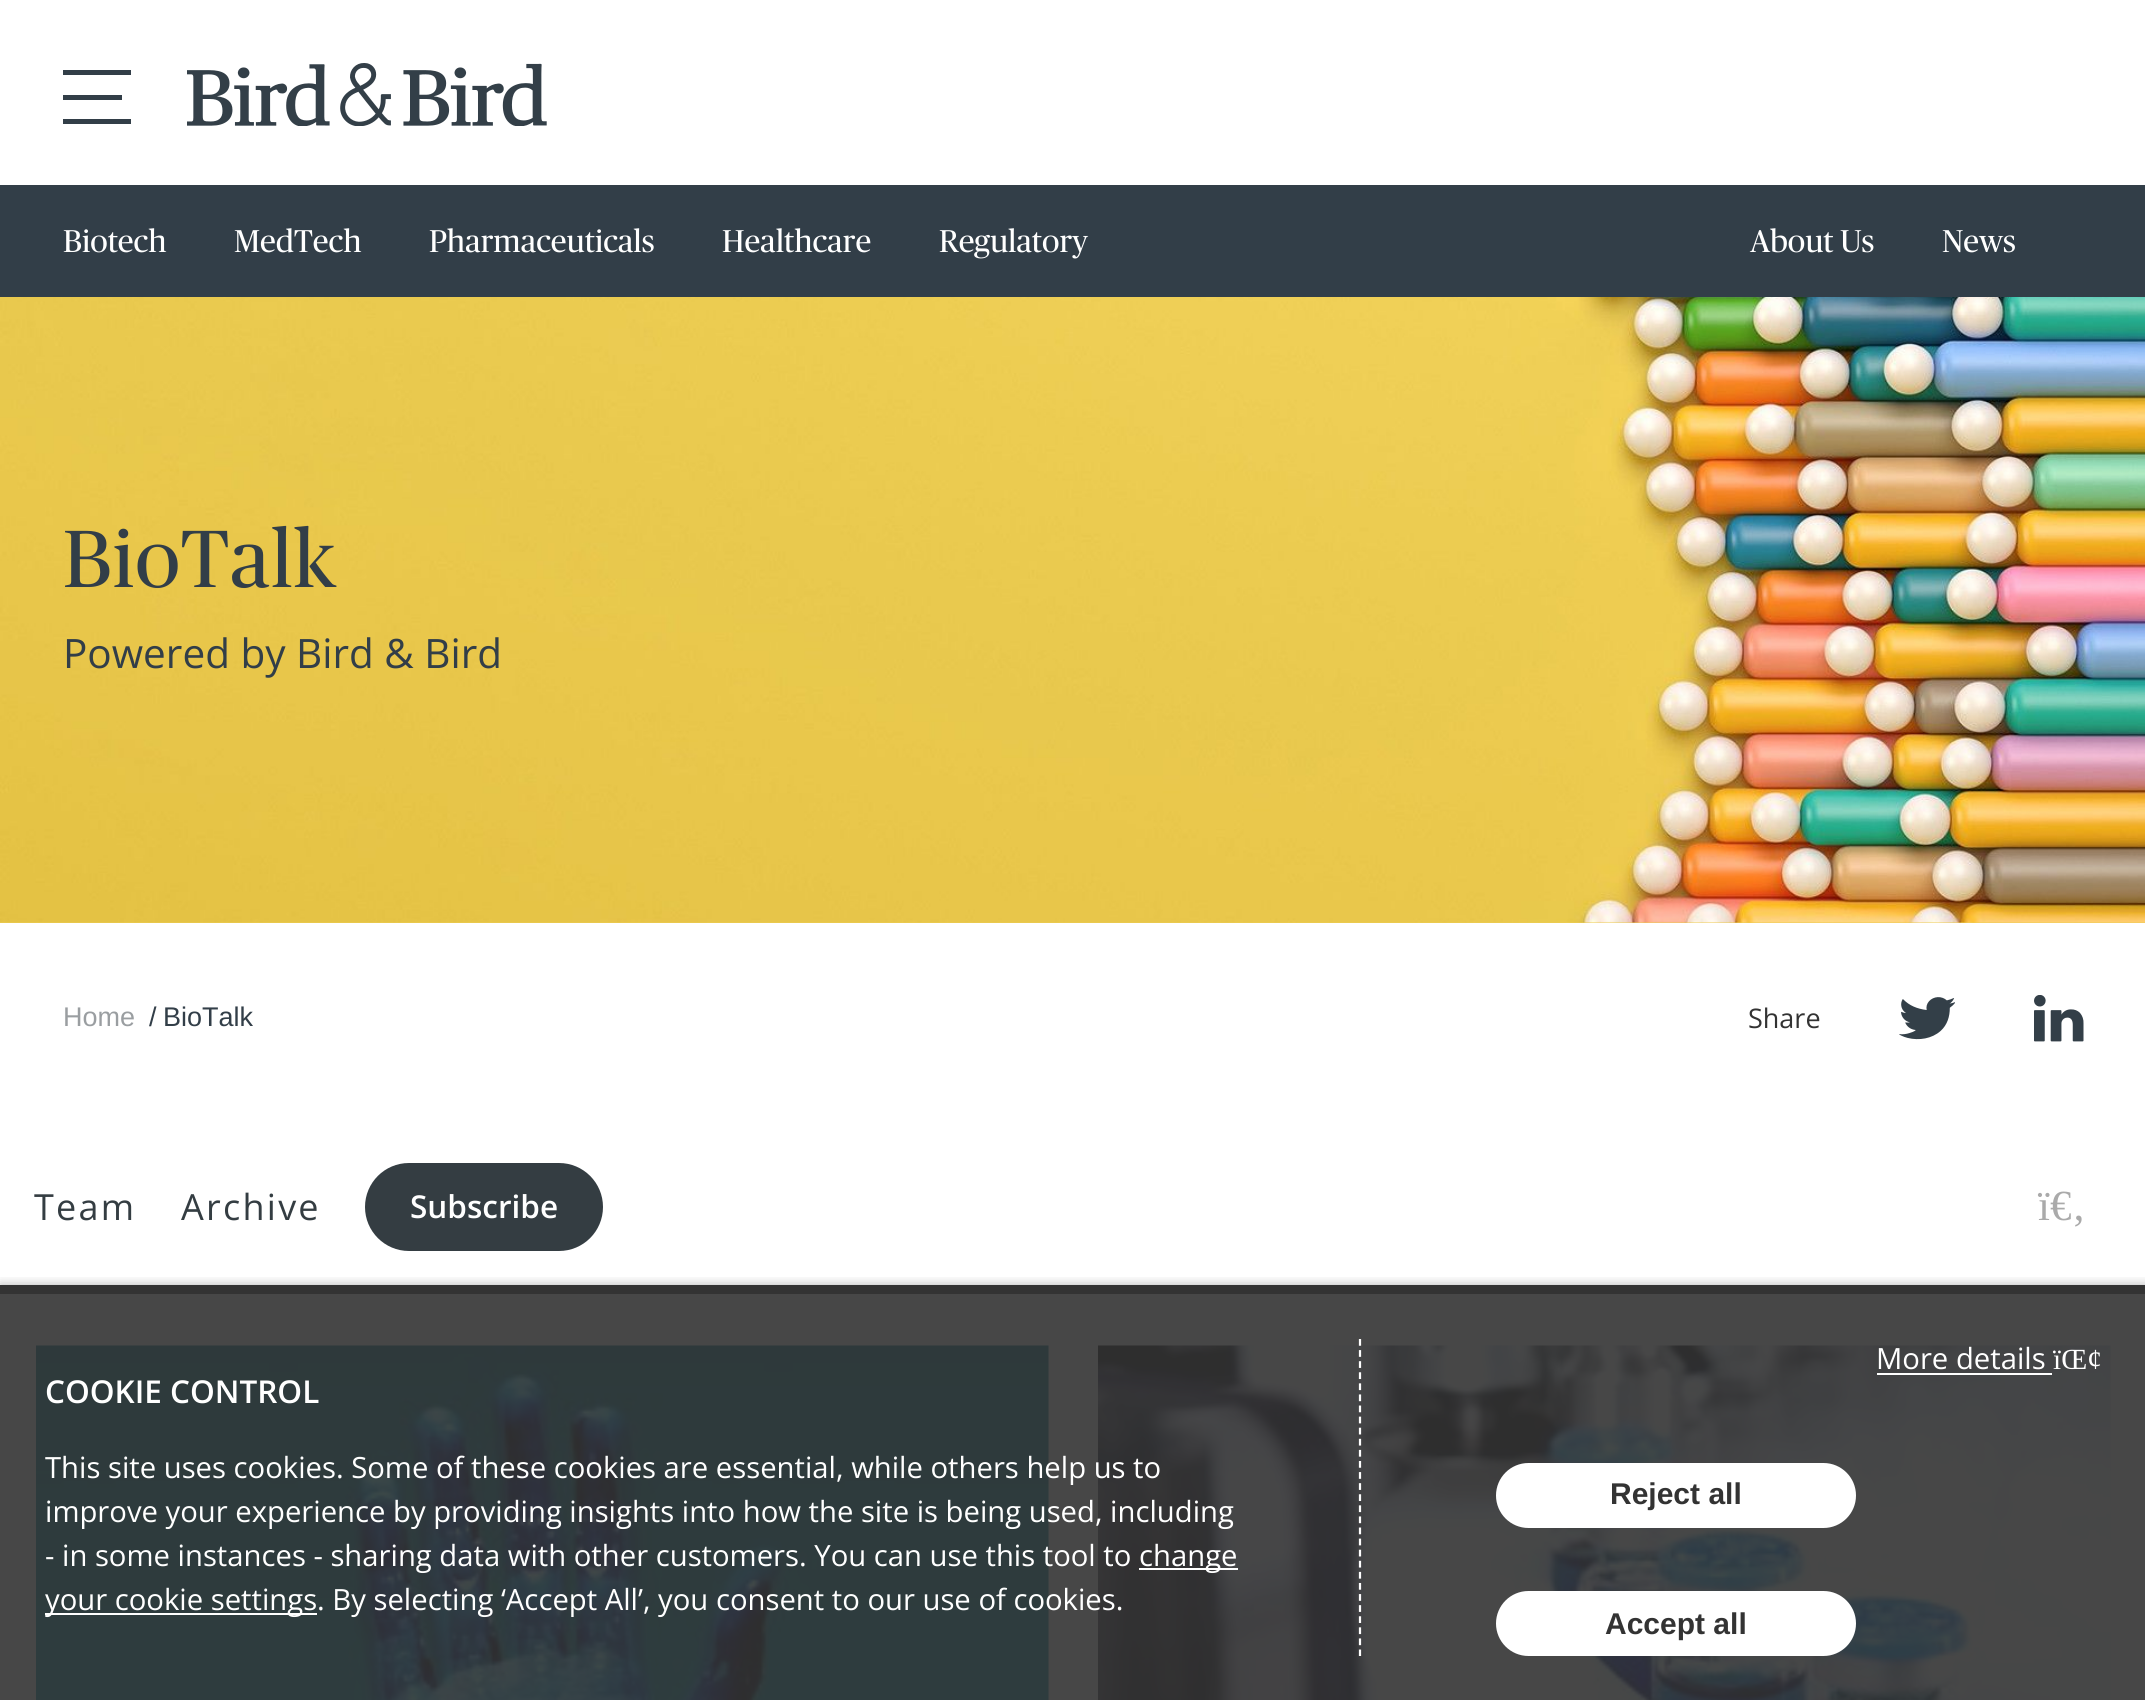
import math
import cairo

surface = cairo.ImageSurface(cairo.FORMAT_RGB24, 2145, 1700)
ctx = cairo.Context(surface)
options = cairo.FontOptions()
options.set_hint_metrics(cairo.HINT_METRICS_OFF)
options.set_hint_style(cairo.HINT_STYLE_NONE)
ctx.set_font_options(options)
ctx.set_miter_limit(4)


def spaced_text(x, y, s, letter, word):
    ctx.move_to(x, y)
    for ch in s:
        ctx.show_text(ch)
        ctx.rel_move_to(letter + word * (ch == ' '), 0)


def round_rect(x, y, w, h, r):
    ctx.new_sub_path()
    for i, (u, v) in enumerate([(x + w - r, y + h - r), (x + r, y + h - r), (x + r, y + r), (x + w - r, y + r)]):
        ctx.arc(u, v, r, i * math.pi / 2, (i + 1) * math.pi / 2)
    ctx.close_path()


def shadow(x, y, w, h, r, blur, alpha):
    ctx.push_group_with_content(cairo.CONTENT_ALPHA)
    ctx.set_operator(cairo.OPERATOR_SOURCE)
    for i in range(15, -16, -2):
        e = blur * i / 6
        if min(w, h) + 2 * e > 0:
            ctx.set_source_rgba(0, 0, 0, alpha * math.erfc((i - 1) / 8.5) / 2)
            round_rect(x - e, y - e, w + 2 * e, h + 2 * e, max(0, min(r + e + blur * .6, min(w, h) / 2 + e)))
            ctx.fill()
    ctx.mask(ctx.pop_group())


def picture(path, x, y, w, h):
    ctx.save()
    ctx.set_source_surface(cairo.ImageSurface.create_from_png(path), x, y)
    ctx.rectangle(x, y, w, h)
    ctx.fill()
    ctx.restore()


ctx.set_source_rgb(1, 1, 1)
ctx.paint()
ctx.set_source_rgb(0.278, 0.278, 0.278)
ctx.rectangle(0, 1294, 2145, 406)
ctx.fill()
ctx.set_source_rgb(0.196, 0.243, 0.282)
ctx.rectangle(63, 70, 68, 5)
ctx.fill()
ctx.rectangle(63, 95, 59, 5)
ctx.fill()
ctx.rectangle(63, 119, 68, 5)
ctx.fill()
picture("img1.png", 187, 63, 360, 63)
ctx.rectangle(0, 185, 2145, 112)
ctx.fill()
ctx.select_font_face("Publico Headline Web")
ctx.set_font_size(31.5)
ctx.set_source_rgb(1, 1, 1)
ctx.move_to(63, 252)
ctx.show_text("Biotech")
ctx.move_to(234, 252)
ctx.show_text("MedTech")
ctx.move_to(429, 252)
ctx.show_text("Pharmaceuticals")
ctx.move_to(722, 252)
ctx.show_text("Healthcare")
ctx.move_to(939, 252)
ctx.show_text("Regulatory")
ctx.move_to(1750, 252)
ctx.show_text("About Us")
ctx.move_to(1942, 252)
ctx.show_text("News")
ctx.set_source_rgb(0.929, 0.804, 0.322)
ctx.rectangle(0, 922, 2145, 1)
ctx.fill()
picture("img2.png", 0, 297, 2145, 626)
ctx.set_font_size(81)
ctx.set_source_rgb(0.196, 0.243, 0.282)
spaced_text(63, 587, "BioTalk", 1, 0)
ctx.select_font_face("Open Sans")
ctx.set_font_size(40.5)
ctx.move_to(63, 668)
ctx.show_text("Powered by Bird & Bird")
ctx.select_font_face("Liberation Sans")
ctx.set_font_size(27)
ctx.set_source_rgb(0.604, 0.62, 0.631)
ctx.move_to(63, 1026)
ctx.show_text("Home")
ctx.set_source_rgb(0.196, 0.243, 0.282)
ctx.move_to(149, 1026)
ctx.show_text("/")
ctx.move_to(163, 1026)
ctx.show_text("BioTalk")
ctx.select_font_face("Open Sans")
ctx.set_source_rgb(0.2, 0.2, 0.2)
ctx.move_to(1748, 1028)
ctx.show_text("Share")
picture("img3.png", 1899, 997, 56, 43)
picture("img4.png", 2034, 995, 50, 47)
ctx.set_font_size(36)
ctx.set_source_rgb(0.204, 0.239, 0.259)
spaced_text(34, 1220, "Team", 2.25, 0)
spaced_text(181, 1220, "Archive", 2.25, 0)
round_rect(365, 1163, 238, 88, 44)
ctx.fill()
ctx.select_font_face("Open Sans SemiBold")
ctx.set_font_size(31.5)
ctx.set_source_rgb(1, 1, 1)
ctx.move_to(410, 1218)
ctx.show_text("Subscribe")
ctx.select_font_face("Liberation Serif")
ctx.set_font_size(43)
ctx.set_source_rgb(0.667, 0.667, 0.667)
ctx.move_to(2038, 1220)
ctx.show_text("ï€‚")
picture("img5.png", 36, 1345, 1013, 355)
picture("img6.png", 1098, 1345, 1013, 355)
ctx.save()
ctx.rectangle(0, 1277, 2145, 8)
ctx.clip()
ctx.set_source_rgb(0, 0, 0)
shadow(0, 1285, 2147, 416, 0, 5.5, 0.3)
ctx.restore()
ctx.set_source_rgb(0.2, 0.2, 0.2)
ctx.rectangle(0, 1285, 2145, 9)
ctx.fill()
ctx.select_font_face("Open Sans")
ctx.set_font_size(29.25)
ctx.set_source_rgb(1, 1, 1)
ctx.move_to(1876, 1369)
ctx.show_text("More details")
ctx.rectangle(1877, 1373, 175, 2)
ctx.fill()
ctx.select_font_face("Liberation Serif")
ctx.move_to(2053, 1369)
ctx.show_text("ïŒ¢")
ctx.new_path()
ctx.move_to(1360, 1339)
ctx.line_to(1360, 1656)
ctx.set_line_width(2.2)
ctx.set_dash([6.75, 4.34])
ctx.stroke()
ctx.select_font_face("Open Sans SemiBold")
ctx.set_font_size(31.5)
ctx.move_to(45, 1403)
ctx.show_text("COOKIE CONTROL")
ctx.select_font_face("Open Sans")
ctx.set_font_size(29.25)
ctx.move_to(45, 1478)
ctx.show_text("This site uses cookies. Some of these cookies are essential, while others help us to")
ctx.move_to(45, 1522)
ctx.show_text("improve your experience by providing insights into how the site is being used, including")
ctx.move_to(45, 1566)
ctx.show_text("- in some instances - sharing data with other customers. You can use this tool to")
ctx.rectangle(1139, 1568, 99, 2)
ctx.fill()
ctx.move_to(1139, 1566)
ctx.show_text("change")
ctx.rectangle(45, 1613, 272, 2)
ctx.fill()
ctx.move_to(45, 1610)
ctx.show_text("your cookie settings. By selecting ‘Accept All’, you consent to our use of cookies.")
round_rect(1496, 1463, 360, 65, 32.5)
ctx.fill()
ctx.select_font_face("Liberation Sans", cairo.FONT_SLANT_NORMAL, cairo.FONT_WEIGHT_BOLD)
ctx.set_font_size(30)
ctx.set_source_rgb(0.2, 0.2, 0.2)
ctx.move_to(1610, 1504)
ctx.show_text("Reject all")
ctx.set_source_rgb(1, 1, 1)
round_rect(1496, 1591, 360, 65, 32.5)
ctx.fill()
ctx.set_source_rgb(0.2, 0.2, 0.2)
ctx.move_to(1605, 1634)
ctx.show_text("Accept all")
surface.write_to_png("page.png")
